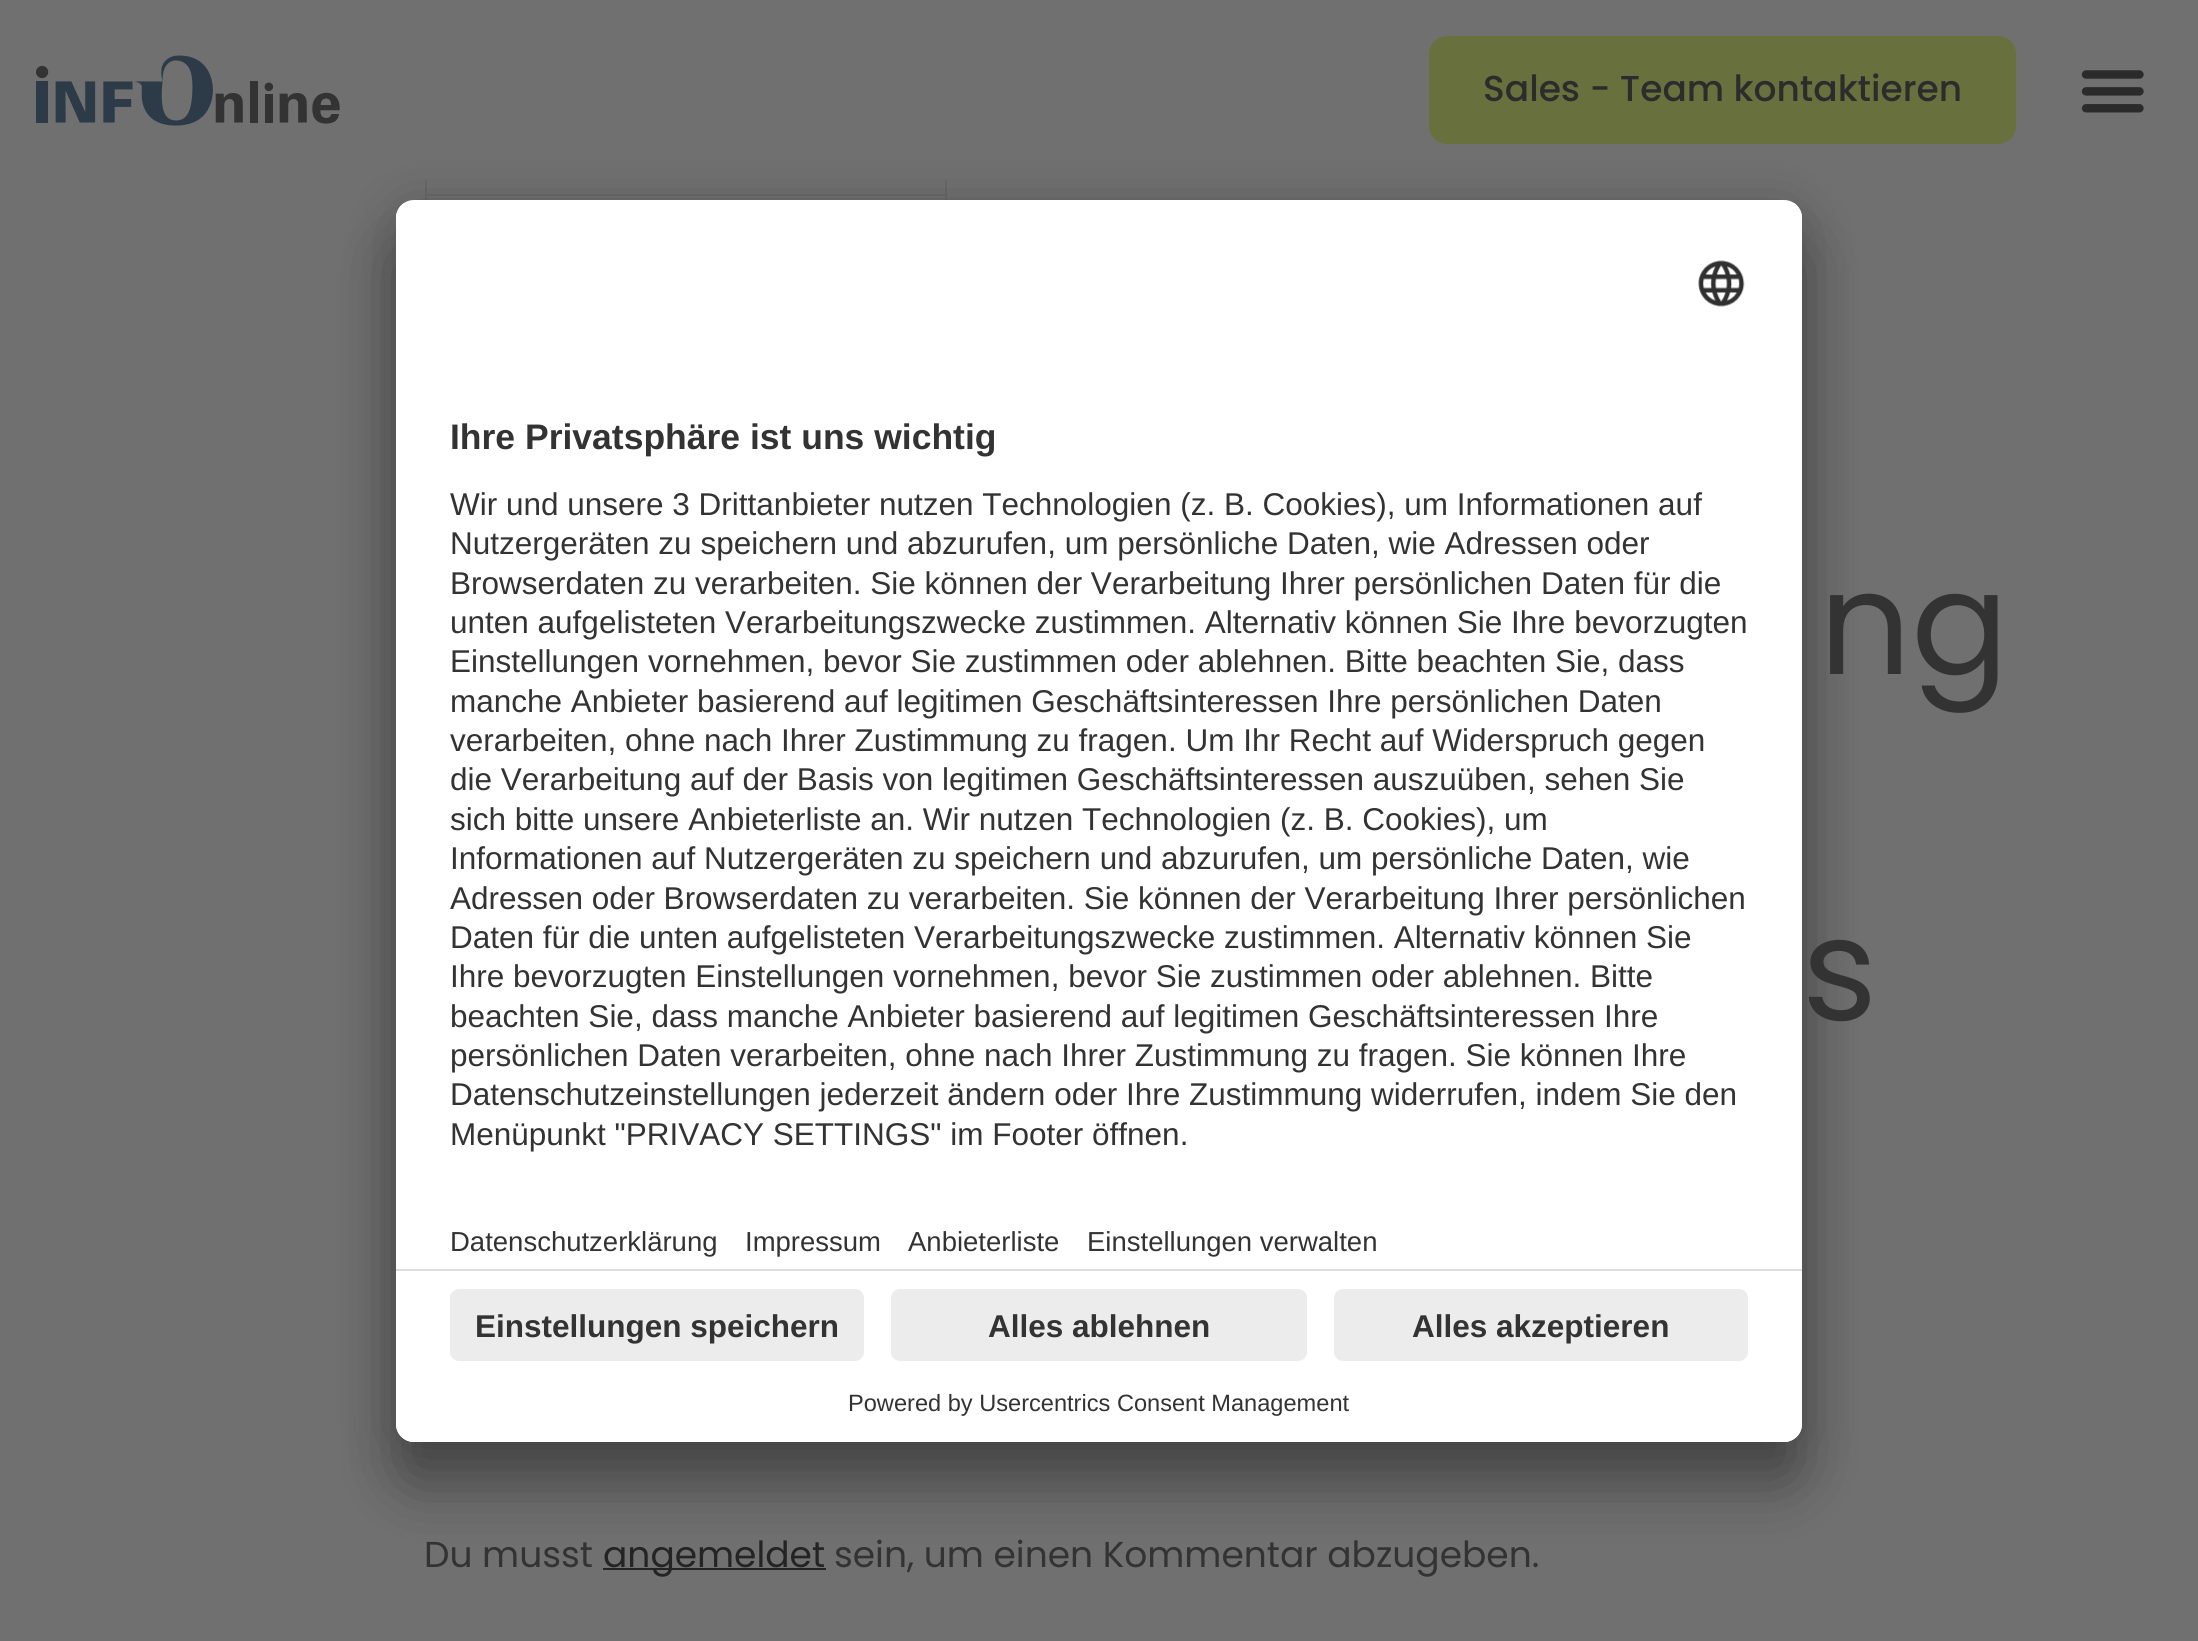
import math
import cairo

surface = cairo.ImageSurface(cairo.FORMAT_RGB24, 2198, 1641)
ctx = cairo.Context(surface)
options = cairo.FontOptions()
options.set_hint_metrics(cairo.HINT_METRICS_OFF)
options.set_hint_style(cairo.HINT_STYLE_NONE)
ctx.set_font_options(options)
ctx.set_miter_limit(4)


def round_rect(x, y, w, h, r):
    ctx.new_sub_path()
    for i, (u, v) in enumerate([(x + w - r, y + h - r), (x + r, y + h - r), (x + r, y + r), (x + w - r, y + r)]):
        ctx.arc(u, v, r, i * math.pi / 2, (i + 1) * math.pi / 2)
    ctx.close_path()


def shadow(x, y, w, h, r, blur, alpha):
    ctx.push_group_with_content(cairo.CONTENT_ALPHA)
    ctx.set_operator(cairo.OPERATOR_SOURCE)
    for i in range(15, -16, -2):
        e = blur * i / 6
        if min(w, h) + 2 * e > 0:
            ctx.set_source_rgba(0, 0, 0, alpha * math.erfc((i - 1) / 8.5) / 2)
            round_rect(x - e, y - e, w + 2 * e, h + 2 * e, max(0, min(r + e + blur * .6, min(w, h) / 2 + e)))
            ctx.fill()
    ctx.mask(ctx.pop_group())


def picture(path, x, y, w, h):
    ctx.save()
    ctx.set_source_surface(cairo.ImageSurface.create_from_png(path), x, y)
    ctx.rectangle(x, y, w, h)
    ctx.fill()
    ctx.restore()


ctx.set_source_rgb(0.439, 0.439, 0.439)
ctx.paint()
ctx.rectangle(426, 84, 520, 111)
ctx.set_source_rgb(0.408, 0.408, 0.408)
ctx.stroke()
ctx.set_source_rgb(0.439, 0.439, 0.439)
ctx.rectangle(425, 83, 522, 97)
ctx.fill()
picture("img1.png", 36, 55, 304, 71)
ctx.set_source_rgb(0.408, 0.439, 0.239)
round_rect(1429, 36, 587, 108, 18)
ctx.fill()
ctx.select_font_face("Poppins Medium")
ctx.set_font_size(36)
ctx.set_source_rgb(0.173, 0.173, 0.173)
ctx.move_to(1483, 101)
ctx.show_text("Sales - Team kontaktieren")
picture("img2.png", 2081, 70, 63, 43)
ctx.rectangle(426, 195, 520, 110)
ctx.set_source_rgb(0.408, 0.408, 0.408)
ctx.stroke()
ctx.set_source_rgb(0.141, 0.141, 0.141)
ctx.rectangle(603, 1568, 223, 2)
ctx.fill()
ctx.set_source_rgb(0, 0, 0)
shadow(396, 245, 1406, 1242, 18, 31.5, 0.3)
shadow(396, 212, 1406, 1242, 18, 29, 0.22)
ctx.set_source_rgb(1, 1, 1)
round_rect(396, 200, 1406, 1242, 18)
ctx.fill()
ctx.save()
round_rect(396, 200, 1406, 1242, 18)
ctx.clip()
ctx.new_path()
ctx.move_to(414, 200)
ctx.line_to(1784, 200)
ctx.curve_to(1794, 200, 1802, 208, 1802, 218)
ctx.line_to(1802, 1269)
ctx.line_to(396, 1269)
ctx.line_to(396, 218)
ctx.curve_to(396, 208, 404, 200, 414, 200)
ctx.close_path()
ctx.clip()
ctx.rectangle(396, 203, 1406, 1066)
ctx.fill()
ctx.restore()
picture("img3.png", 1698, 260, 47, 47)
ctx.select_font_face("Liberation Sans", cairo.FONT_SLANT_NORMAL, cairo.FONT_WEIGHT_BOLD)
ctx.set_font_size(35.5)
ctx.set_source_rgb(0.2, 0.2, 0.2)
ctx.move_to(450, 449)
ctx.show_text("Ihre Privatsphäre ist uns wichtig")
ctx.select_font_face("Liberation Sans")
ctx.set_font_size(31.5)
ctx.move_to(450, 515)
ctx.show_text("Wir und unsere 3 Drittanbieter nutzen Technologien (z. B. Cookies), um Informationen auf")
ctx.move_to(450, 554)
ctx.show_text("Nutzergeräten zu speichern und abzurufen, um persönliche Daten, wie Adressen oder")
ctx.move_to(450, 594)
ctx.show_text("Browserdaten zu verarbeiten. Sie können der Verarbeitung Ihrer persönlichen Daten für die")
ctx.move_to(450, 633)
ctx.show_text("unten aufgelisteten Verarbeitungszwecke zustimmen. Alternativ können Sie Ihre bevorzugten")
ctx.move_to(450, 672)
ctx.show_text("Einstellungen vornehmen, bevor Sie zustimmen oder ablehnen. Bitte beachten Sie, dass")
ctx.move_to(450, 712)
ctx.show_text("manche Anbieter basierend auf legitimen Geschäftsinteressen Ihre persönlichen Daten")
ctx.move_to(450, 751)
ctx.show_text("verarbeiten, ohne nach Ihrer Zustimmung zu fragen. Um Ihr Recht auf Widerspruch gegen")
ctx.move_to(450, 790)
ctx.show_text("die Verarbeitung auf der Basis von legitimen Geschäftsinteressen auszuüben, sehen Sie")
ctx.move_to(450, 830)
ctx.show_text("sich bitte unsere Anbieterliste an. Wir nutzen Technologien (z. B. Cookies), um")
ctx.move_to(450, 869)
ctx.show_text("Informationen auf Nutzergeräten zu speichern und abzurufen, um persönliche Daten, wie")
ctx.move_to(450, 909)
ctx.show_text("Adressen oder Browserdaten zu verarbeiten. Sie können der Verarbeitung Ihrer persönlichen")
ctx.move_to(450, 948)
ctx.show_text("Daten für die unten aufgelisteten Verarbeitungszwecke zustimmen. Alternativ können Sie")
ctx.move_to(450, 987)
ctx.show_text("Ihre bevorzugten Einstellungen vornehmen, bevor Sie zustimmen oder ablehnen. Bitte")
ctx.move_to(450, 1027)
ctx.show_text("beachten Sie, dass manche Anbieter basierend auf legitimen Geschäftsinteressen Ihre")
ctx.move_to(450, 1066)
ctx.show_text("persönlichen Daten verarbeiten, ohne nach Ihrer Zustimmung zu fragen. Sie können Ihre")
ctx.move_to(450, 1105)
ctx.show_text("Datenschutzeinstellungen jederzeit ändern oder Ihre Zustimmung widerrufen, indem Sie den")
ctx.move_to(450, 1145)
ctx.show_text("Menüpunkt \"PRIVACY SETTINGS\" im Footer öffnen.")
ctx.set_font_size(27.5)
ctx.move_to(450, 1251)
ctx.show_text("Datenschutzerklärung")
ctx.move_to(745, 1251)
ctx.show_text("Impressum")
ctx.move_to(908, 1251)
ctx.show_text("Anbieterliste")
ctx.move_to(1087, 1251)
ctx.show_text("Einstellungen verwalten")
ctx.set_source_rgb(1, 1, 1)
ctx.new_path()
ctx.move_to(396, 1269)
ctx.line_to(1802, 1269)
ctx.line_to(1802, 1424)
ctx.curve_to(1802, 1434, 1794, 1442, 1784, 1442)
ctx.line_to(414, 1442)
ctx.curve_to(404, 1442, 396, 1434, 396, 1424)
ctx.close_path()
ctx.fill()
ctx.set_source_rgb(0.867, 0.867, 0.867)
ctx.rectangle(396, 1269, 1406, 2)
ctx.fill()
ctx.set_source_rgb(0.922, 0.922, 0.922)
round_rect(450, 1289, 414, 72, 9)
ctx.fill()
ctx.select_font_face("Liberation Sans", cairo.FONT_SLANT_NORMAL, cairo.FONT_WEIGHT_BOLD)
ctx.set_font_size(31.5)
ctx.set_source_rgb(0.2, 0.2, 0.2)
ctx.move_to(475, 1337)
ctx.show_text("Einstellungen speichern")
ctx.set_source_rgb(0.922, 0.922, 0.922)
round_rect(891, 1289, 416, 72, 9)
ctx.fill()
ctx.set_source_rgb(0.2, 0.2, 0.2)
ctx.move_to(988, 1337)
ctx.show_text("Alles ablehnen")
ctx.set_source_rgb(0.922, 0.922, 0.922)
round_rect(1334, 1289, 414, 72, 9)
ctx.fill()
ctx.set_source_rgb(0.2, 0.2, 0.2)
ctx.move_to(1412, 1337)
ctx.show_text("Alles akzeptieren")
ctx.select_font_face("Liberation Sans")
ctx.set_font_size(23.6)
ctx.move_to(848, 1411)
ctx.show_text("Powered by Usercentrics Consent Management")
ctx.select_font_face("Poppins")
ctx.set_font_size(144)
ctx.move_to(1819, 674)
ctx.show_text("ng")
ctx.move_to(1802, 1020)
ctx.show_text("s")
ctx.set_font_size(36)
ctx.move_to(424, 1567)
ctx.show_text("Du musst")
ctx.set_source_rgb(0.141, 0.141, 0.141)
ctx.move_to(603, 1567)
ctx.show_text("angemeldet")
ctx.set_source_rgb(0.2, 0.2, 0.2)
ctx.move_to(834, 1567)
ctx.show_text("sein, um einen Kommentar abzugeben.")
surface.write_to_png("page.png")
